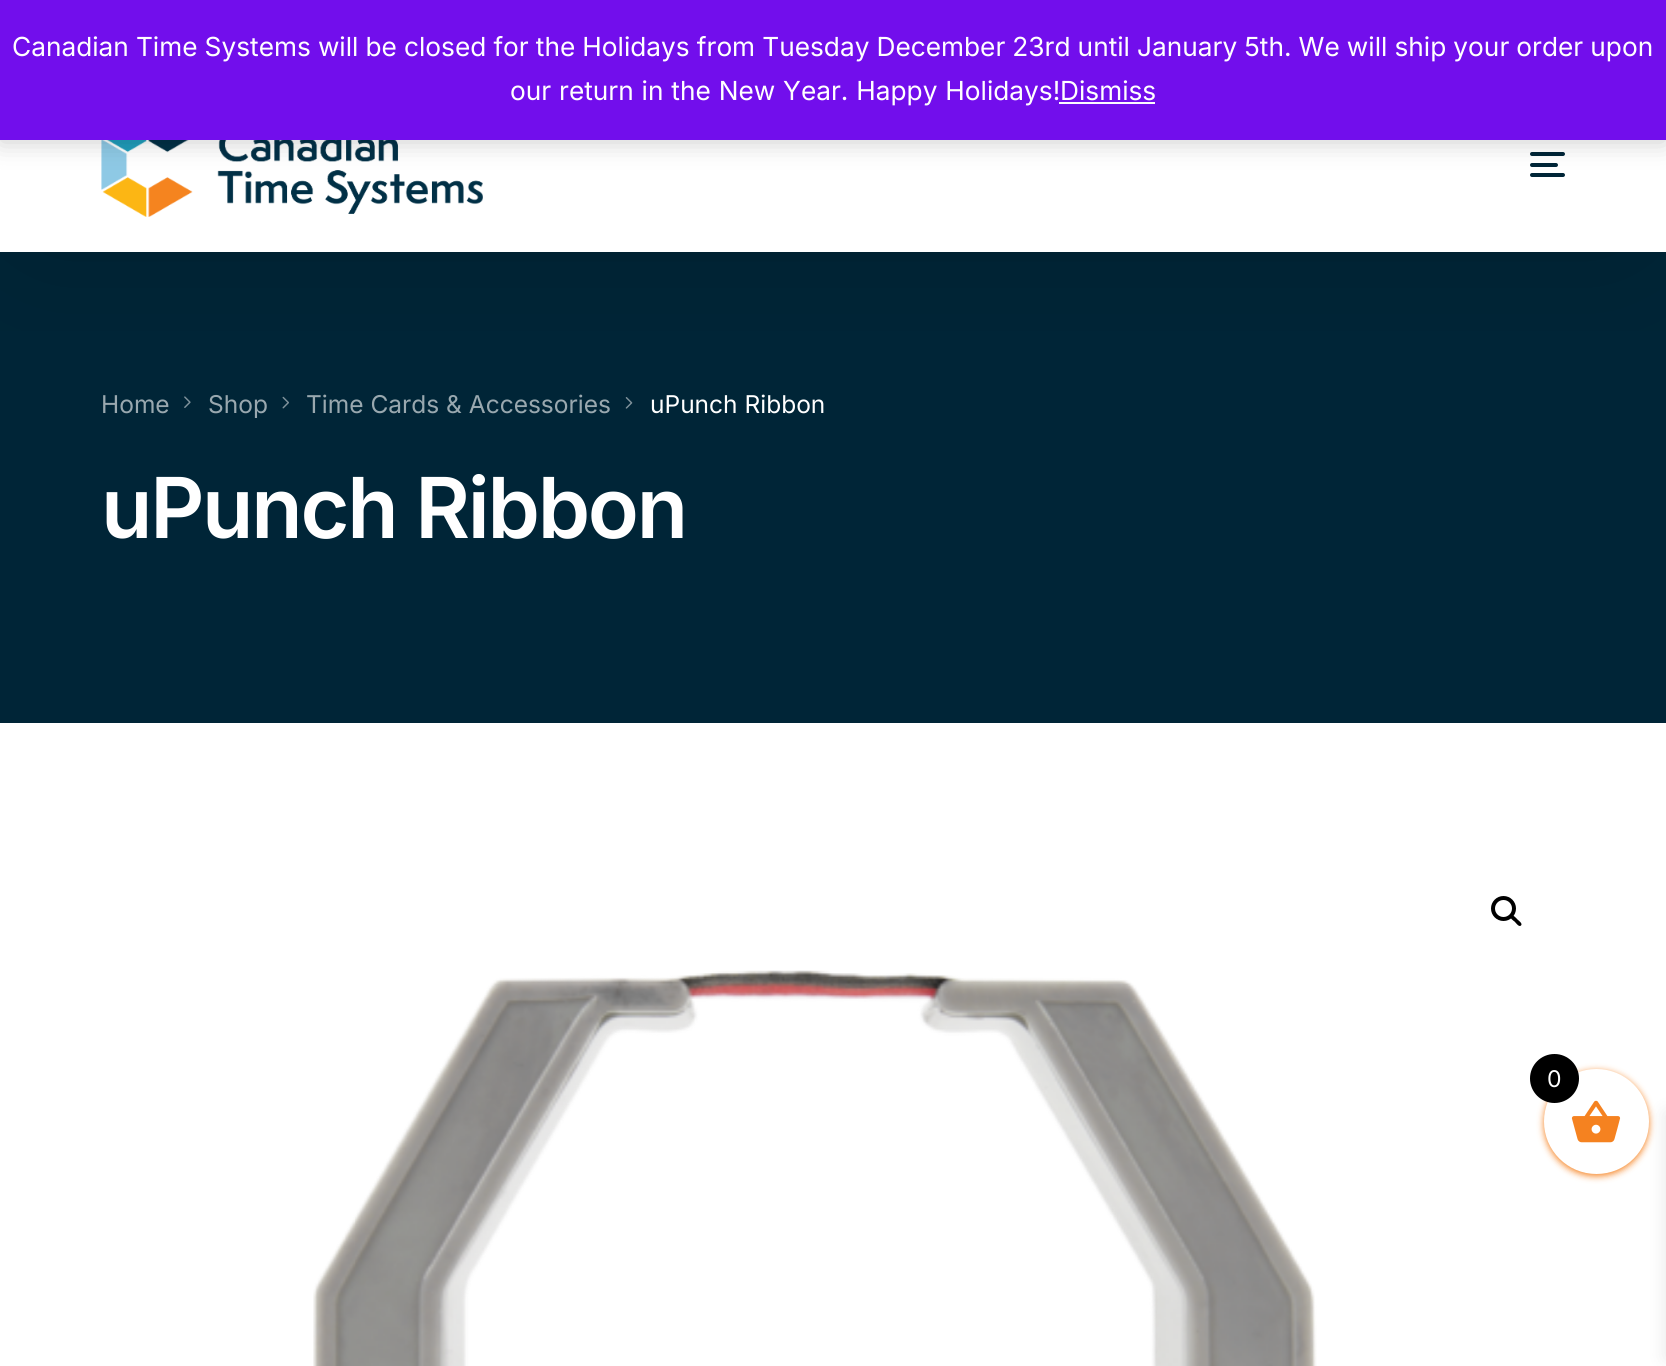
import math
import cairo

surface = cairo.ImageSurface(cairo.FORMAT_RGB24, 1666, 1366)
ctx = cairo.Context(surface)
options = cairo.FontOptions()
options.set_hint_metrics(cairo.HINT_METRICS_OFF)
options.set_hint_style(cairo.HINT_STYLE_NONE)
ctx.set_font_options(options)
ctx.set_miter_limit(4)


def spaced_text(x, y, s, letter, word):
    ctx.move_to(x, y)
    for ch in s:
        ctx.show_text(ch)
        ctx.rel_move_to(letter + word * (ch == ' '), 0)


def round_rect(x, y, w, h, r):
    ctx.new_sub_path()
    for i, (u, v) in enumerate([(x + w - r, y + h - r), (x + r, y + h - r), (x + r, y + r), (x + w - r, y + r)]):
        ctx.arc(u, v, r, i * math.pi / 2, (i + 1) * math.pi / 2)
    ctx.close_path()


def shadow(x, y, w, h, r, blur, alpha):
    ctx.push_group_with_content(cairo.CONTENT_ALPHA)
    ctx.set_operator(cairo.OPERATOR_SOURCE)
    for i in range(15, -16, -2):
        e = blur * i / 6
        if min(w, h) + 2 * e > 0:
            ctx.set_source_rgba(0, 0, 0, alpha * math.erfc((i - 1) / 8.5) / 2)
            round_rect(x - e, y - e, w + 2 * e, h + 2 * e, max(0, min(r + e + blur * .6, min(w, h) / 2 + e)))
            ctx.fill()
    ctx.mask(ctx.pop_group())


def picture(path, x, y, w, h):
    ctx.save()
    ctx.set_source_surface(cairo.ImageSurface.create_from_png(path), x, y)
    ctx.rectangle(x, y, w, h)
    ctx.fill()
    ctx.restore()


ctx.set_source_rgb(1, 1, 1)
ctx.paint()
ctx.set_source_rgb(0, 0.145, 0.216)
ctx.rectangle(0, 252, 1666, 471)
ctx.fill()
picture("img2.png", 184, 396, 7, 12)
picture("img3.png", 282, 396, 7, 13)
picture("img4.png", 625, 397, 8, 12)
ctx.save()
ctx.rectangle(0, 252, 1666, 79)
ctx.clip()
ctx.set_source_rgb(0, 0, 0)
shadow(32, 117, 1596, 105, 0, 79, 0.25)
ctx.restore()
picture("img1.png", 101, 140, 382, 77)
round_rect(1530, 152, 35, 4, 2)
ctx.fill()
round_rect(1530, 163, 28, 4, 2)
ctx.fill()
round_rect(1530, 173, 35, 4, 2)
ctx.fill()
ctx.set_source_rgb(0, 0, 0)
shadow(0, 2, 1666, 140, 0, 13, 0.2)
ctx.set_source_rgb(0.447, 0.055, 0.925)
ctx.rectangle(0, 0, 1666, 140)
ctx.fill()
ctx.select_font_face("Inter")
ctx.set_font_size(26.25)
ctx.set_source_rgb(1, 1, 1)
spaced_text(12, 56, "Canadian Time Systems will be closed for the Holidays from Tuesday December 23rd until January 5th. We will ship your order upon", 0, -0.3)
spaced_text(510, 100, "our return in the New Year. Happy Holidays!", 0, 0.5)
ctx.move_to(1060, 100)
ctx.show_text("Dismiss")
ctx.set_source_rgb(0.988, 0.984, 0.996)
ctx.rectangle(1059, 102, 96, 2)
ctx.fill()
ctx.set_font_size(24.5)
ctx.set_source_rgb(0.6, 0.659, 0.686)
ctx.move_to(101, 413)
ctx.show_text("Home")
ctx.move_to(208, 413)
ctx.show_text("Shop")
ctx.move_to(306, 413)
ctx.show_text("Time Cards & Accessories")
ctx.set_source_rgb(1, 1, 1)
ctx.move_to(650, 413)
ctx.show_text("uPunch Ribbon")
ctx.select_font_face("Inter SemiBold")
ctx.set_font_size(84)
spaced_text(101, 538, "uPunch Ribbon", -2.25, 0)
ctx.new_path()
ctx.arc(1503.5, 908.5, 10.5, 0, 2 * math.pi)
ctx.set_source_rgb(0, 0, 0)
ctx.set_line_width(4)
ctx.stroke()
ctx.new_path()
ctx.move_to(1511, 916)
ctx.curve_to(1513, 914, 1516.5, 918.5, 1517.5, 919.5)
ctx.curve_to(1518.5, 920.5, 1523, 923.5, 1521, 925.5)
ctx.curve_to(1519, 927.5, 1516, 923, 1515, 922)
ctx.curve_to(1514, 921, 1509, 918, 1511, 916)
ctx.close_path()
ctx.fill()
picture("img5.png", 313, 970, 1004, 396)
ctx.set_source_rgb(0.961, 0.51, 0.125)
shadow(1544, 1071, 105, 105, 52.5, 3.5, 1)
ctx.set_source_rgb(0, 0, 0)
shadow(1666, 1113, 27, 245, 0, 9, 0.1)
ctx.set_source_rgb(1, 1, 1)
ctx.arc(1596.5, 1121.5, 52.5, 0, 2 * math.pi)
ctx.fill()
picture("img6.png", 1571, 1100, 50, 43)
ctx.set_source_rgb(0, 0, 0)
ctx.arc(1554.5, 1078.5, 24.5, 0, 2 * math.pi)
ctx.fill()
ctx.select_font_face("Inter")
ctx.set_font_size(23)
ctx.set_source_rgb(1, 1, 1)
ctx.move_to(1547, 1087)
ctx.show_text("0")
surface.write_to_png("page.png")
